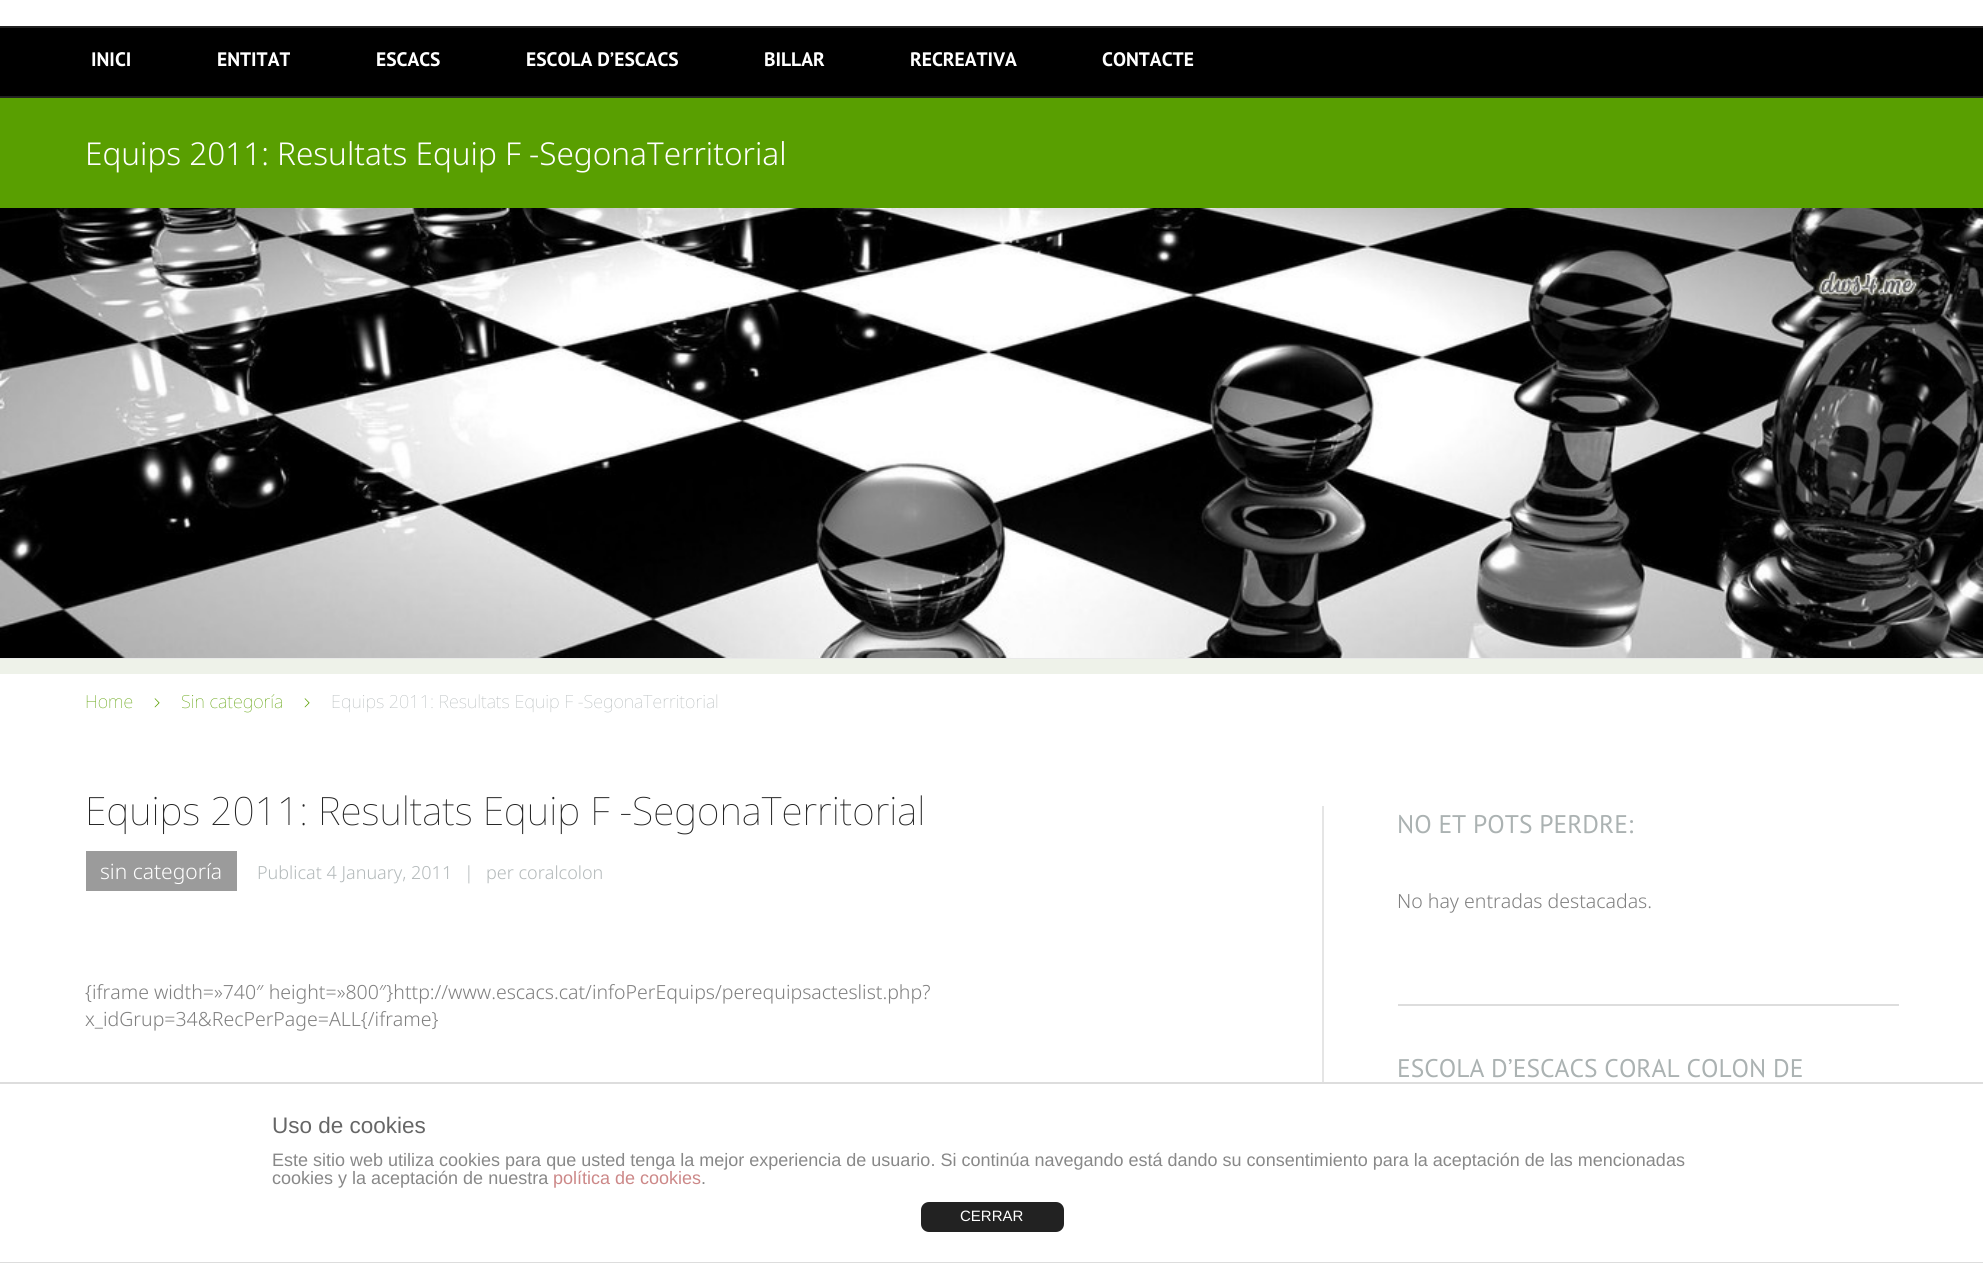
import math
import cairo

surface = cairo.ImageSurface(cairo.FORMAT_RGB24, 1983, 1263)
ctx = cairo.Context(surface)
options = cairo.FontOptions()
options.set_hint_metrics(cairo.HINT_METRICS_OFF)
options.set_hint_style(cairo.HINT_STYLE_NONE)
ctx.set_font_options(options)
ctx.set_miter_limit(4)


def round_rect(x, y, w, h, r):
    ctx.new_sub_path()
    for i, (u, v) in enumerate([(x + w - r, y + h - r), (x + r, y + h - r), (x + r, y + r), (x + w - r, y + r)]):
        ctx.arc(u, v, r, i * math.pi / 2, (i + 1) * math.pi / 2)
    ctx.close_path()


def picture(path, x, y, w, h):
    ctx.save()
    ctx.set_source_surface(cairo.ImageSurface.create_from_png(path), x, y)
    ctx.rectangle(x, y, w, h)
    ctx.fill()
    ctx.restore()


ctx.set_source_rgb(1, 1, 1)
ctx.paint()
ctx.set_source_rgb(0, 0, 0)
ctx.rectangle(0, 28, 1983, 68)
ctx.fill()
ctx.set_source_rgb(0.133, 0.133, 0.133)
ctx.rectangle(0, 26, 1983, 2)
ctx.fill()
ctx.rectangle(0, 96, 1983, 2)
ctx.fill()
ctx.select_font_face("PT Sans", cairo.FONT_SLANT_NORMAL, cairo.FONT_WEIGHT_BOLD)
ctx.set_font_size(19.5)
ctx.set_source_rgb(1, 1, 1)
ctx.move_to(91, 66)
ctx.show_text("INICI")
ctx.move_to(217, 66)
ctx.show_text("ENTITAT")
ctx.move_to(376, 66)
ctx.show_text("ESCACS")
ctx.move_to(526, 66)
ctx.show_text("ESCOLA D’ESCACS")
ctx.move_to(764, 66)
ctx.show_text("BILLAR")
ctx.move_to(910, 66)
ctx.show_text("RECREATIVA")
ctx.move_to(1102, 66)
ctx.show_text("CONTACTE")
ctx.set_source_rgb(0.349, 0.624, 0.004)
ctx.rectangle(0, 98, 1983, 110)
ctx.fill()
ctx.select_font_face("Noto Sans Light")
ctx.set_font_size(31.5)
ctx.set_source_rgb(1, 1, 1)
ctx.move_to(85, 165)
ctx.show_text("Equips 2011: Resultats Equip F -SegonaTerritorial")
ctx.set_source_rgb(0.914, 0.914, 0.914)
ctx.rectangle(0, 658, 1983, 1)
ctx.fill()
picture("img1.png", 0, 208, 1983, 450)
ctx.set_source_rgb(0.933, 0.949, 0.914)
ctx.rectangle(0, 659, 1983, 15)
ctx.fill()
ctx.select_font_face("Noto Sans Thin")
ctx.set_font_size(18)
ctx.set_source_rgb(0.349, 0.624, 0.004)
ctx.move_to(85, 708)
ctx.show_text("Home")
picture("img2.png", 154, 698, 6, 10)
ctx.move_to(181, 708)
ctx.show_text("Sin categoría")
picture("img2.png", 304, 698, 6, 10)
ctx.set_source_rgb(0.702, 0.725, 0.729)
ctx.move_to(331, 708)
ctx.show_text("Equips 2011: Resultats Equip F -SegonaTerritorial")
ctx.set_font_size(39)
ctx.set_source_rgb(0.133, 0.133, 0.133)
ctx.move_to(85, 825)
ctx.show_text("Equips 2011: Resultats Equip F -SegonaTerritorial")
ctx.set_source_rgb(0.608, 0.608, 0.608)
ctx.rectangle(86, 851, 151, 40)
ctx.fill()
ctx.select_font_face("Noto Sans Light")
ctx.set_font_size(21)
ctx.set_source_rgb(1, 1, 1)
ctx.move_to(100, 879)
ctx.show_text("sin categoría")
ctx.set_font_size(18)
ctx.set_source_rgb(0.702, 0.725, 0.729)
ctx.move_to(257, 879)
ctx.show_text("Publicat 4 January, 2011")
ctx.move_to(464, 879)
ctx.show_text("|")
ctx.move_to(486, 879)
ctx.show_text("per coralcolon")
ctx.set_font_size(19.5)
ctx.set_source_rgb(0.498, 0.498, 0.498)
ctx.move_to(85, 999)
ctx.show_text("{iframe width=»740″ height=»800″}http://www.escacs.cat/infoPerEquips/perequipsacteslist.php?")
ctx.move_to(85, 1026)
ctx.show_text("x_idGrup=34&RecPerPage=ALL{/iframe}")
ctx.set_source_rgb(0.898, 0.898, 0.898)
ctx.rectangle(1322, 806, 2, 276)
ctx.fill()
ctx.set_source_rgb(0.867, 0.867, 0.867)
ctx.rectangle(1398, 1004, 501, 2)
ctx.fill()
ctx.select_font_face("PT Sans")
ctx.set_font_size(25.5)
ctx.set_source_rgb(0.671, 0.698, 0.698)
ctx.move_to(1397, 833)
ctx.show_text("NO ET POTS PERDRE:")
ctx.select_font_face("Noto Sans Light")
ctx.set_font_size(19.5)
ctx.set_source_rgb(0.498, 0.498, 0.498)
ctx.move_to(1397, 908)
ctx.show_text("No hay entradas destacadas.")
ctx.select_font_face("PT Sans")
ctx.set_font_size(25.5)
ctx.set_source_rgb(0.671, 0.698, 0.698)
ctx.move_to(1397, 1077)
ctx.show_text("ESCOLA D’ESCACS CORAL COLON DE")
ctx.set_source_rgb(0.867, 0.867, 0.867)
ctx.rectangle(0, 1082, 1983, 2)
ctx.fill()
ctx.rectangle(0, 1262, 1983, 1)
ctx.fill()
ctx.select_font_face("Liberation Sans")
ctx.set_font_size(22.5)
ctx.set_source_rgb(0.4, 0.4, 0.4)
ctx.move_to(272, 1133)
ctx.show_text("Uso de cookies")
ctx.set_font_size(18)
ctx.set_source_rgb(0.533, 0.533, 0.533)
ctx.move_to(272, 1166)
ctx.show_text("Este sitio web utiliza cookies para que usted tenga la mejor experiencia de usuario. Si continúa navegando está dando su consentimiento para la aceptación de las mencionadas")
ctx.move_to(272, 1184)
ctx.show_text("cookies y la aceptación de nuestra")
ctx.set_source_rgb(0.8, 0.533, 0.533)
ctx.move_to(553, 1184)
ctx.show_text("política de cookies")
ctx.set_source_rgb(0.533, 0.533, 0.533)
ctx.move_to(701, 1184)
ctx.show_text(".")
ctx.set_source_rgb(0.133, 0.133, 0.133)
round_rect(921, 1202, 143, 30, 8)
ctx.fill()
ctx.set_font_size(15)
ctx.set_source_rgb(1, 1, 1)
ctx.move_to(960, 1221)
ctx.show_text("CERRAR")
surface.write_to_png("page.png")
